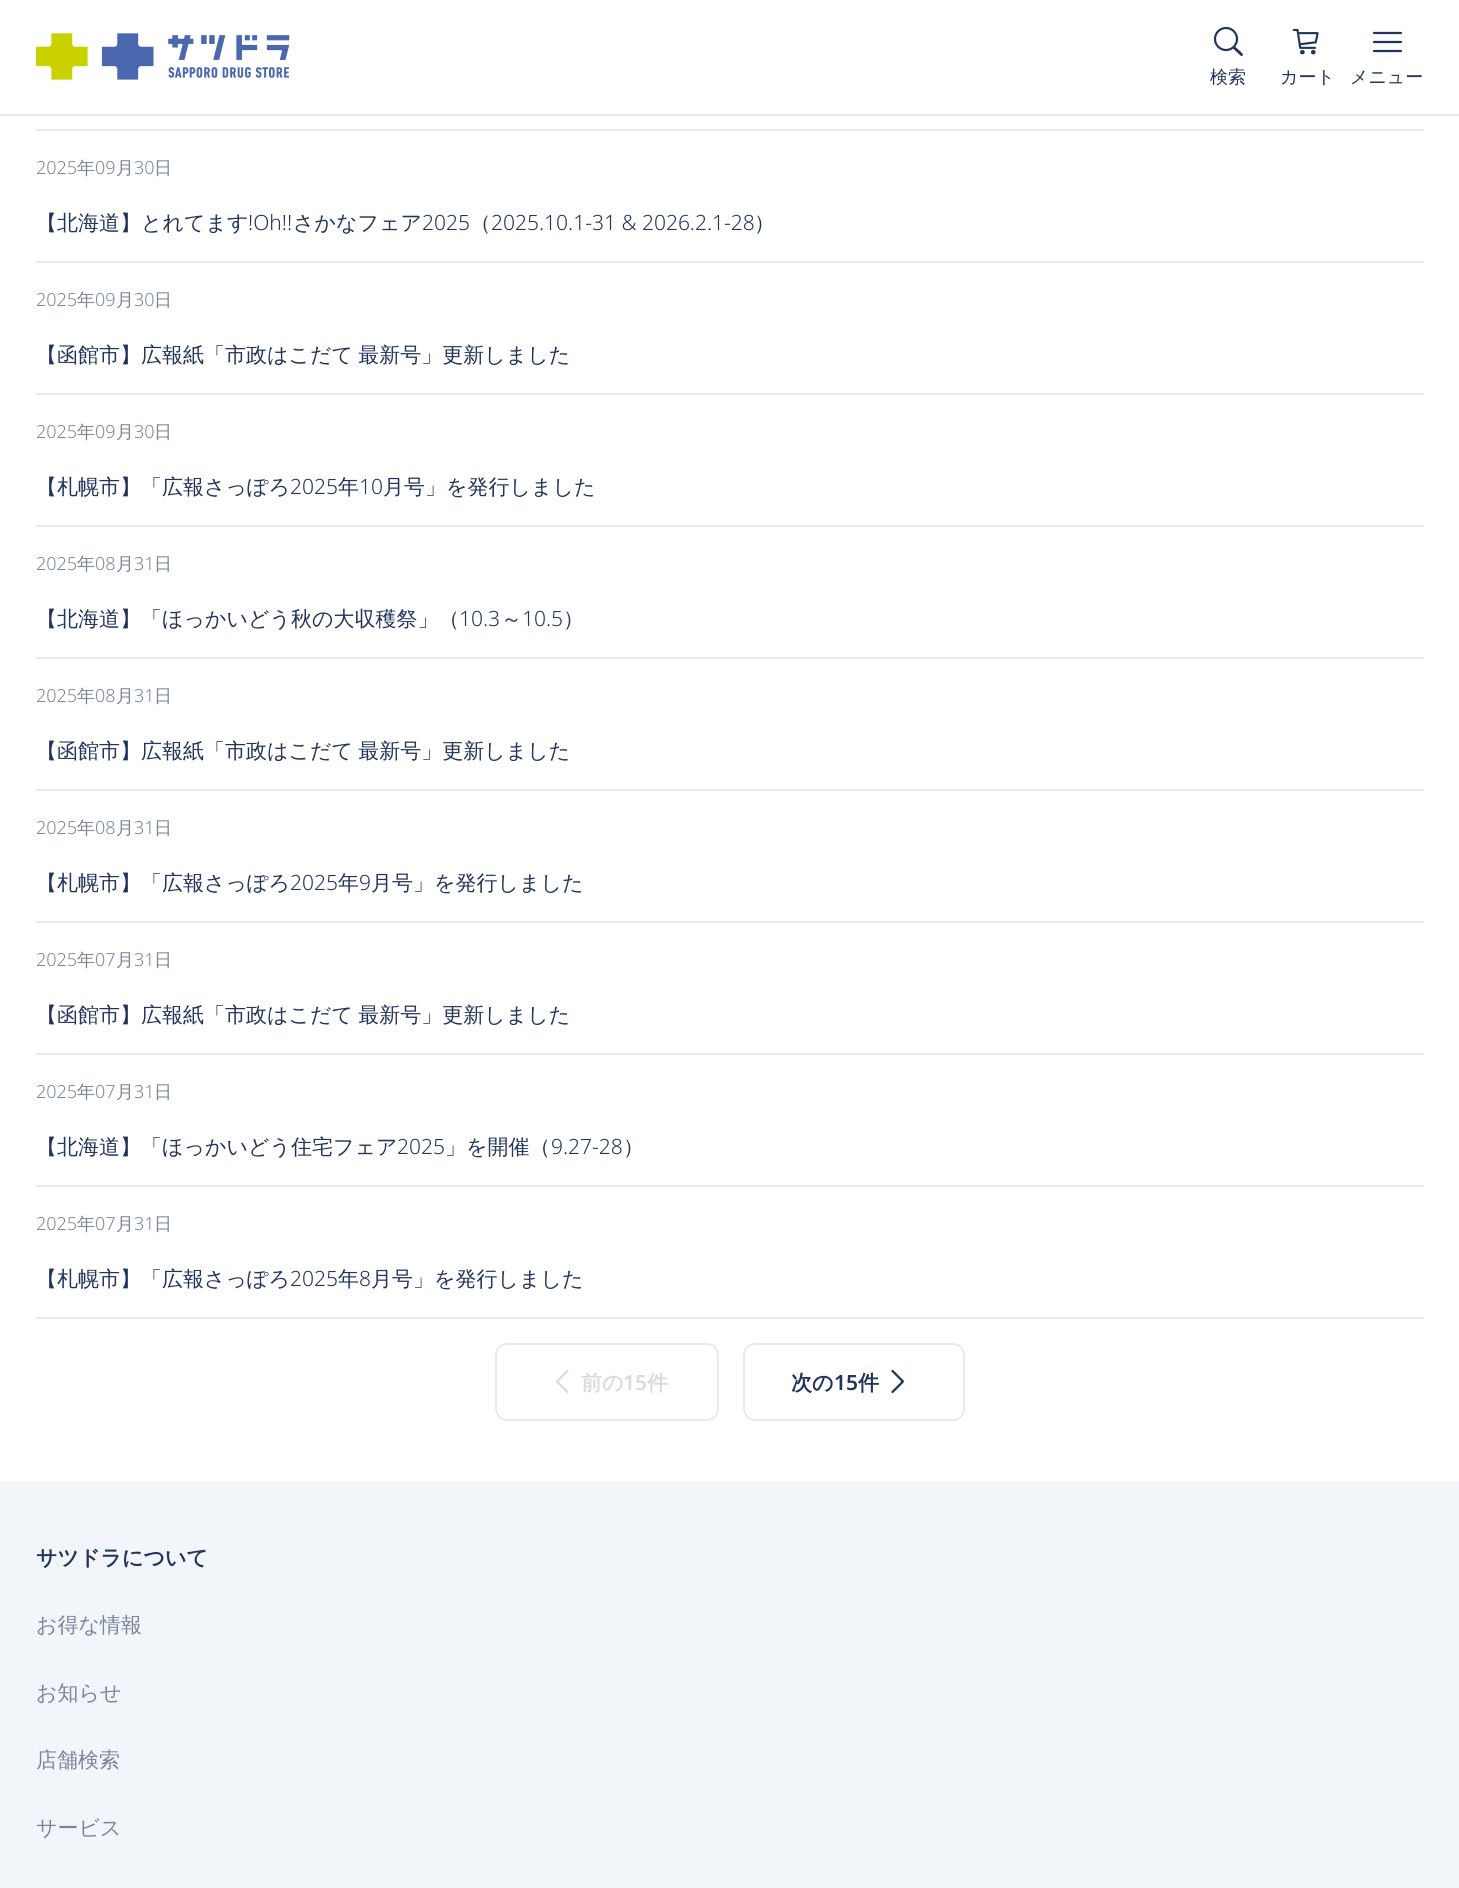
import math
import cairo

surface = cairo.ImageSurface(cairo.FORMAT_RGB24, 1459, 1888)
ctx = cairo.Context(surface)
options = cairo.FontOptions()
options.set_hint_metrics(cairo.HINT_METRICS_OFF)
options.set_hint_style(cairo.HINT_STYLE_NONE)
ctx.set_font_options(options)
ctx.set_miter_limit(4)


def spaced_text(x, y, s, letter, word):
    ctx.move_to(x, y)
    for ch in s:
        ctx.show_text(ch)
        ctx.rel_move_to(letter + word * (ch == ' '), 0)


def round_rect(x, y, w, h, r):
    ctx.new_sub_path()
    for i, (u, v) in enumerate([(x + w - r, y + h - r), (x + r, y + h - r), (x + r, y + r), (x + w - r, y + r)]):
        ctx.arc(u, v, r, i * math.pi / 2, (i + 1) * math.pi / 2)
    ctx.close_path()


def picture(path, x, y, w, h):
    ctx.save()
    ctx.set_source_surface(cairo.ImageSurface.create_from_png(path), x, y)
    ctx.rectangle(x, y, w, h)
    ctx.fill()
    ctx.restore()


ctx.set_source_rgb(1, 1, 1)
ctx.paint()
ctx.set_source_rgb(0.902, 0.914, 0.933)
ctx.rectangle(0, 114, 1459, 2)
ctx.fill()
picture("img1.png", 36, 33, 254, 47)
ctx.arc(1226, 39, 11, 0, 2 * math.pi)
ctx.set_source_rgb(0.133, 0.204, 0.357)
ctx.set_line_width(2.2)
ctx.stroke()
ctx.new_path()
ctx.move_to(1240.5, 55.5)
ctx.curve_to(1242, 57, 1243.5, 55, 1242.5, 53.5)
ctx.close_path()
ctx.move_to(1233, 48.5)
ctx.line_to(1240.5, 55.5)
ctx.line_to(1242.5, 53.5)
ctx.line_to(1235, 46.5)
ctx.close_path()
ctx.fill()
ctx.select_font_face("WenQuanYi Zen Hei Medium")
ctx.set_font_size(18)
ctx.move_to(1210, 83)
ctx.show_text("検索")
picture("img2.png", 1292, 29, 27, 26)
ctx.move_to(1280, 83)
ctx.show_text("カート")
ctx.new_path()
ctx.move_to(1374, 33)
ctx.line_to(1401, 33)
ctx.move_to(1374, 42)
ctx.line_to(1401, 42)
ctx.move_to(1374, 51)
ctx.line_to(1401, 51)
ctx.set_line_cap(cairo.LINE_CAP_ROUND)
ctx.stroke()
ctx.move_to(1350, 83)
ctx.show_text("メニュー")
ctx.set_source_rgb(0.902, 0.914, 0.933)
ctx.rectangle(36, 129, 1388, 2)
ctx.fill()
ctx.select_font_face("Noto Sans Light")
ctx.set_source_rgb(0.478, 0.522, 0.616)
ctx.move_to(36, 174)
ctx.show_text("2025")
ctx.select_font_face("WenQuanYi Zen Hei Medium")
ctx.move_to(77, 174)
ctx.show_text("年")
ctx.select_font_face("Noto Sans Light")
ctx.move_to(95, 174)
ctx.show_text("09")
ctx.select_font_face("WenQuanYi Zen Hei Medium")
ctx.move_to(116, 174)
ctx.show_text("月")
ctx.select_font_face("Noto Sans Light")
ctx.move_to(134, 174)
ctx.show_text("30")
ctx.select_font_face("WenQuanYi Zen Hei Medium")
ctx.move_to(154, 174)
ctx.show_text("日")
ctx.set_font_size(21)
ctx.set_source_rgb(0.133, 0.204, 0.357)
ctx.move_to(36, 230)
ctx.show_text("【北海道】とれてます")
ctx.select_font_face("Noto Sans Light")
ctx.move_to(248, 230)
ctx.show_text("!Oh!!")
ctx.select_font_face("WenQuanYi Zen Hei Medium")
ctx.move_to(293, 230)
ctx.show_text("さかなフェア")
ctx.select_font_face("Noto Sans Light")
ctx.move_to(422, 230)
ctx.show_text("2025")
ctx.select_font_face("WenQuanYi Zen Hei Medium")
ctx.move_to(470, 230)
ctx.show_text("（")
ctx.select_font_face("Noto Sans Light")
ctx.move_to(491, 230)
ctx.show_text("2025.10.1-31 & 2026.2.1-28")
ctx.select_font_face("WenQuanYi Zen Hei Medium")
ctx.move_to(754, 230)
ctx.show_text("）")
ctx.set_source_rgb(0.902, 0.914, 0.933)
ctx.rectangle(36, 261, 1388, 2)
ctx.fill()
ctx.select_font_face("Noto Sans Light")
ctx.set_font_size(18)
ctx.set_source_rgb(0.478, 0.522, 0.616)
ctx.move_to(36, 306)
ctx.show_text("2025")
ctx.select_font_face("WenQuanYi Zen Hei Medium")
ctx.move_to(77, 306)
ctx.show_text("年")
ctx.select_font_face("Noto Sans Light")
ctx.move_to(95, 306)
ctx.show_text("09")
ctx.select_font_face("WenQuanYi Zen Hei Medium")
ctx.move_to(116, 306)
ctx.show_text("月")
ctx.select_font_face("Noto Sans Light")
ctx.move_to(134, 306)
ctx.show_text("30")
ctx.select_font_face("WenQuanYi Zen Hei Medium")
ctx.move_to(154, 306)
ctx.show_text("日")
ctx.set_font_size(21)
ctx.set_source_rgb(0.133, 0.204, 0.357)
spaced_text(36, 362, "【函館市】広報紙「市政はこだて 最新号」更新しました", 0, -1)
ctx.set_source_rgb(0.902, 0.914, 0.933)
ctx.rectangle(36, 393, 1388, 2)
ctx.fill()
ctx.select_font_face("Noto Sans Light")
ctx.set_font_size(18)
ctx.set_source_rgb(0.478, 0.522, 0.616)
ctx.move_to(36, 438)
ctx.show_text("2025")
ctx.select_font_face("WenQuanYi Zen Hei Medium")
ctx.move_to(77, 438)
ctx.show_text("年")
ctx.select_font_face("Noto Sans Light")
ctx.move_to(95, 438)
ctx.show_text("09")
ctx.select_font_face("WenQuanYi Zen Hei Medium")
ctx.move_to(116, 438)
ctx.show_text("月")
ctx.select_font_face("Noto Sans Light")
ctx.move_to(134, 438)
ctx.show_text("30")
ctx.select_font_face("WenQuanYi Zen Hei Medium")
ctx.move_to(154, 438)
ctx.show_text("日")
ctx.set_font_size(21)
ctx.set_source_rgb(0.133, 0.204, 0.357)
ctx.move_to(36, 494)
ctx.show_text("【札幌市】「広報さっぽろ")
ctx.select_font_face("Noto Sans Light")
ctx.move_to(290, 494)
ctx.show_text("2025")
ctx.select_font_face("WenQuanYi Zen Hei Medium")
ctx.move_to(338, 494)
ctx.show_text("年")
ctx.select_font_face("Noto Sans Light")
ctx.move_to(359, 494)
ctx.show_text("10")
ctx.select_font_face("WenQuanYi Zen Hei Medium")
ctx.move_to(383, 494)
ctx.show_text("月号」を発行しました")
ctx.set_source_rgb(0.902, 0.914, 0.933)
ctx.rectangle(36, 525, 1388, 2)
ctx.fill()
ctx.select_font_face("Noto Sans Light")
ctx.set_font_size(18)
ctx.set_source_rgb(0.478, 0.522, 0.616)
ctx.move_to(36, 570)
ctx.show_text("2025")
ctx.select_font_face("WenQuanYi Zen Hei Medium")
ctx.move_to(77, 570)
ctx.show_text("年")
ctx.select_font_face("Noto Sans Light")
ctx.move_to(95, 570)
ctx.show_text("08")
ctx.select_font_face("WenQuanYi Zen Hei Medium")
ctx.move_to(116, 570)
ctx.show_text("月")
ctx.select_font_face("Noto Sans Light")
ctx.move_to(134, 570)
ctx.show_text("31")
ctx.select_font_face("WenQuanYi Zen Hei Medium")
ctx.move_to(154, 570)
ctx.show_text("日")
ctx.set_font_size(21)
ctx.set_source_rgb(0.133, 0.204, 0.357)
ctx.move_to(36, 626)
ctx.show_text("【北海道】「ほっかいどう秋の大収穫祭」（")
ctx.select_font_face("Noto Sans Light")
ctx.move_to(459, 626)
ctx.show_text("10.3")
ctx.select_font_face("WenQuanYi Zen Hei Medium")
ctx.move_to(501, 626)
ctx.show_text("～")
ctx.select_font_face("Noto Sans Light")
ctx.move_to(522, 626)
ctx.show_text("10.5")
ctx.select_font_face("WenQuanYi Zen Hei Medium")
ctx.move_to(563, 626)
ctx.show_text("）")
ctx.set_source_rgb(0.902, 0.914, 0.933)
ctx.rectangle(36, 657, 1388, 2)
ctx.fill()
ctx.select_font_face("Noto Sans Light")
ctx.set_font_size(18)
ctx.set_source_rgb(0.478, 0.522, 0.616)
ctx.move_to(36, 702)
ctx.show_text("2025")
ctx.select_font_face("WenQuanYi Zen Hei Medium")
ctx.move_to(77, 702)
ctx.show_text("年")
ctx.select_font_face("Noto Sans Light")
ctx.move_to(95, 702)
ctx.show_text("08")
ctx.select_font_face("WenQuanYi Zen Hei Medium")
ctx.move_to(116, 702)
ctx.show_text("月")
ctx.select_font_face("Noto Sans Light")
ctx.move_to(134, 702)
ctx.show_text("31")
ctx.select_font_face("WenQuanYi Zen Hei Medium")
ctx.move_to(154, 702)
ctx.show_text("日")
ctx.set_font_size(21)
ctx.set_source_rgb(0.133, 0.204, 0.357)
spaced_text(36, 758, "【函館市】広報紙「市政はこだて 最新号」更新しました", 0, -1)
ctx.set_source_rgb(0.902, 0.914, 0.933)
ctx.rectangle(36, 789, 1388, 2)
ctx.fill()
ctx.select_font_face("Noto Sans Light")
ctx.set_font_size(18)
ctx.set_source_rgb(0.478, 0.522, 0.616)
ctx.move_to(36, 834)
ctx.show_text("2025")
ctx.select_font_face("WenQuanYi Zen Hei Medium")
ctx.move_to(77, 834)
ctx.show_text("年")
ctx.select_font_face("Noto Sans Light")
ctx.move_to(95, 834)
ctx.show_text("08")
ctx.select_font_face("WenQuanYi Zen Hei Medium")
ctx.move_to(116, 834)
ctx.show_text("月")
ctx.select_font_face("Noto Sans Light")
ctx.move_to(134, 834)
ctx.show_text("31")
ctx.select_font_face("WenQuanYi Zen Hei Medium")
ctx.move_to(154, 834)
ctx.show_text("日")
ctx.set_font_size(21)
ctx.set_source_rgb(0.133, 0.204, 0.357)
ctx.move_to(36, 890)
ctx.show_text("【札幌市】「広報さっぽろ")
ctx.select_font_face("Noto Sans Light")
ctx.move_to(290, 890)
ctx.show_text("2025")
ctx.select_font_face("WenQuanYi Zen Hei Medium")
ctx.move_to(338, 890)
ctx.show_text("年")
ctx.select_font_face("Noto Sans Light")
ctx.move_to(359, 890)
ctx.show_text("9")
ctx.select_font_face("WenQuanYi Zen Hei Medium")
ctx.move_to(371, 890)
ctx.show_text("月号」を発行しました")
ctx.set_source_rgb(0.902, 0.914, 0.933)
ctx.rectangle(36, 921, 1388, 2)
ctx.fill()
ctx.select_font_face("Noto Sans Light")
ctx.set_font_size(18)
ctx.set_source_rgb(0.478, 0.522, 0.616)
ctx.move_to(36, 966)
ctx.show_text("2025")
ctx.select_font_face("WenQuanYi Zen Hei Medium")
ctx.move_to(77, 966)
ctx.show_text("年")
ctx.select_font_face("Noto Sans Light")
ctx.move_to(95, 966)
ctx.show_text("07")
ctx.select_font_face("WenQuanYi Zen Hei Medium")
ctx.move_to(116, 966)
ctx.show_text("月")
ctx.select_font_face("Noto Sans Light")
ctx.move_to(134, 966)
ctx.show_text("31")
ctx.select_font_face("WenQuanYi Zen Hei Medium")
ctx.move_to(154, 966)
ctx.show_text("日")
ctx.set_font_size(21)
ctx.set_source_rgb(0.133, 0.204, 0.357)
spaced_text(36, 1022, "【函館市】広報紙「市政はこだて 最新号」更新しました", 0, -1)
ctx.set_source_rgb(0.902, 0.914, 0.933)
ctx.rectangle(36, 1053, 1388, 2)
ctx.fill()
ctx.select_font_face("Noto Sans Light")
ctx.set_font_size(18)
ctx.set_source_rgb(0.478, 0.522, 0.616)
ctx.move_to(36, 1098)
ctx.show_text("2025")
ctx.select_font_face("WenQuanYi Zen Hei Medium")
ctx.move_to(77, 1098)
ctx.show_text("年")
ctx.select_font_face("Noto Sans Light")
ctx.move_to(95, 1098)
ctx.show_text("07")
ctx.select_font_face("WenQuanYi Zen Hei Medium")
ctx.move_to(116, 1098)
ctx.show_text("月")
ctx.select_font_face("Noto Sans Light")
ctx.move_to(134, 1098)
ctx.show_text("31")
ctx.select_font_face("WenQuanYi Zen Hei Medium")
ctx.move_to(154, 1098)
ctx.show_text("日")
ctx.set_font_size(21)
ctx.set_source_rgb(0.133, 0.204, 0.357)
ctx.move_to(36, 1154)
ctx.show_text("【北海道】「ほっかいどう住宅フェア")
ctx.select_font_face("Noto Sans Light")
ctx.move_to(397, 1154)
ctx.show_text("2025")
ctx.select_font_face("WenQuanYi Zen Hei Medium")
ctx.move_to(445, 1154)
ctx.show_text("」を開催（")
ctx.select_font_face("Noto Sans Light")
ctx.move_to(551, 1154)
ctx.show_text("9.27-28")
ctx.select_font_face("WenQuanYi Zen Hei Medium")
ctx.move_to(623, 1154)
ctx.show_text("）")
ctx.set_source_rgb(0.902, 0.914, 0.933)
ctx.rectangle(36, 1185, 1388, 2)
ctx.fill()
ctx.select_font_face("Noto Sans Light")
ctx.set_font_size(18)
ctx.set_source_rgb(0.478, 0.522, 0.616)
ctx.move_to(36, 1230)
ctx.show_text("2025")
ctx.select_font_face("WenQuanYi Zen Hei Medium")
ctx.move_to(77, 1230)
ctx.show_text("年")
ctx.select_font_face("Noto Sans Light")
ctx.move_to(95, 1230)
ctx.show_text("07")
ctx.select_font_face("WenQuanYi Zen Hei Medium")
ctx.move_to(116, 1230)
ctx.show_text("月")
ctx.select_font_face("Noto Sans Light")
ctx.move_to(134, 1230)
ctx.show_text("31")
ctx.select_font_face("WenQuanYi Zen Hei Medium")
ctx.move_to(154, 1230)
ctx.show_text("日")
ctx.set_font_size(21)
ctx.set_source_rgb(0.133, 0.204, 0.357)
ctx.move_to(36, 1286)
ctx.show_text("【札幌市】「広報さっぽろ")
ctx.select_font_face("Noto Sans Light")
ctx.move_to(290, 1286)
ctx.show_text("2025")
ctx.select_font_face("WenQuanYi Zen Hei Medium")
ctx.move_to(338, 1286)
ctx.show_text("年")
ctx.select_font_face("Noto Sans Light")
ctx.move_to(359, 1286)
ctx.show_text("8")
ctx.select_font_face("WenQuanYi Zen Hei Medium")
ctx.move_to(371, 1286)
ctx.show_text("月号」を発行しました")
ctx.set_source_rgb(0.902, 0.914, 0.933)
ctx.rectangle(36, 1317, 1388, 2)
ctx.fill()
round_rect(496, 1344, 222, 76, 11)
ctx.set_line_width(2)
ctx.set_line_cap(cairo.LINE_CAP_BUTT)
ctx.stroke()
picture("img3.png", 556, 1370, 13, 23)
ctx.select_font_face("WenQuanYi Zen Hei", cairo.FONT_SLANT_NORMAL, cairo.FONT_WEIGHT_BOLD)
ctx.set_source_rgb(0.851, 0.859, 0.878)
ctx.move_to(581, 1390)
ctx.show_text("前の")
ctx.select_font_face("Noto Sans SemiBold")
ctx.move_to(623, 1390)
ctx.show_text("15")
ctx.select_font_face("WenQuanYi Zen Hei", cairo.FONT_SLANT_NORMAL, cairo.FONT_WEIGHT_BOLD)
ctx.move_to(647, 1390)
ctx.show_text("件")
round_rect(744, 1344, 220, 76, 11)
ctx.set_source_rgb(0.902, 0.914, 0.933)
ctx.stroke()
ctx.set_source_rgb(0.133, 0.204, 0.357)
ctx.move_to(791, 1390)
ctx.show_text("次の")
ctx.select_font_face("Noto Sans SemiBold")
ctx.move_to(834, 1390)
ctx.show_text("15")
ctx.select_font_face("WenQuanYi Zen Hei", cairo.FONT_SLANT_NORMAL, cairo.FONT_WEIGHT_BOLD)
ctx.move_to(858, 1390)
ctx.show_text("件")
picture("img4.png", 891, 1369, 13, 25)
ctx.set_source_rgb(0.949, 0.961, 0.98)
ctx.rectangle(0, 1481, 1459, 407)
ctx.fill()
ctx.set_source_rgb(0.133, 0.204, 0.357)
ctx.move_to(36, 1565)
ctx.show_text("サツドラについて")
ctx.select_font_face("WenQuanYi Zen Hei Medium")
ctx.set_source_rgb(0.478, 0.522, 0.616)
ctx.move_to(36, 1632)
ctx.show_text("お得な情報")
ctx.move_to(36, 1700)
ctx.show_text("お知らせ")
ctx.move_to(36, 1767)
ctx.show_text("店舗検索")
ctx.move_to(36, 1835)
ctx.show_text("サービス")
surface.write_to_png("page.png")
